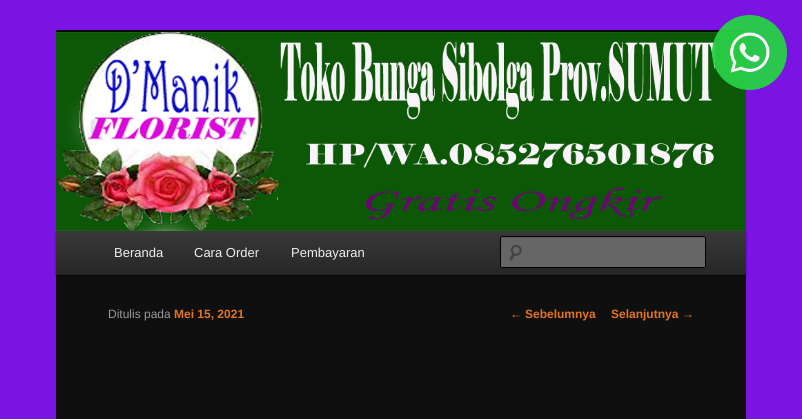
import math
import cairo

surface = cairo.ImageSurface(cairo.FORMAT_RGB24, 802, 419)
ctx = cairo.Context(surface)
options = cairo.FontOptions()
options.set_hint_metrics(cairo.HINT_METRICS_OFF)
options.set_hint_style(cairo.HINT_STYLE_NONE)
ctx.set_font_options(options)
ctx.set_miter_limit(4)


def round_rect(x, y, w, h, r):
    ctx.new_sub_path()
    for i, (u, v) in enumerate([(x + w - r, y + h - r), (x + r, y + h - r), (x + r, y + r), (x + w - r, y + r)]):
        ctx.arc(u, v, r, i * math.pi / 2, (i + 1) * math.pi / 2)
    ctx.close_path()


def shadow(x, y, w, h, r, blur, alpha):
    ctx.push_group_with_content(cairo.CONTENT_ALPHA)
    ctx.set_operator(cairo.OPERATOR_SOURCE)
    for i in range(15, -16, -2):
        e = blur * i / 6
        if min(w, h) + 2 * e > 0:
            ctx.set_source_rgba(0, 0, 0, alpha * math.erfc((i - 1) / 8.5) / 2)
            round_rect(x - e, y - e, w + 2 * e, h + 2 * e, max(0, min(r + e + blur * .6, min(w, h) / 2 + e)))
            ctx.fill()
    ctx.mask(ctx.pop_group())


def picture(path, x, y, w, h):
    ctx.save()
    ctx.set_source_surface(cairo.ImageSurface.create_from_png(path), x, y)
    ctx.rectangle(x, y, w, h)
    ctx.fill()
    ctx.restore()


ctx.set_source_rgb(0.482, 0.078, 0.886)
ctx.paint()
ctx.set_source_rgb(0.039, 0.039, 0.039)
ctx.rectangle(56, 30, 690, 2)
ctx.fill()
ctx.set_source_rgb(0.059, 0.059, 0.059)
ctx.rectangle(56, 275, 690, 144)
ctx.fill()
ctx.set_source_rgb(0, 0, 0)
shadow(56, 232, 690, 44, 0, 1, 0.4)
picture("img2.png", 56, 32, 690, 199)
picture("img1.png", 712, 15, 75, 75)
gradient = cairo.LinearGradient(401, 231, 401, 274)
gradient.add_color_stop_rgba(0, 0.22, 0.22, 0.22, 1)
gradient.add_color_stop_rgba(1, 0.153, 0.153, 0.153, 1)
ctx.set_source(gradient)
ctx.rectangle(56, 231, 690, 43)
ctx.fill()
ctx.set_source_rgb(0.133, 0.133, 0.133)
ctx.rectangle(56, 274, 690, 1)
ctx.fill()
ctx.select_font_face("Liberation Sans")
ctx.set_font_size(13)
ctx.set_source_rgb(0.933, 0.933, 0.933)
ctx.move_to(114, 257)
ctx.show_text("Beranda")
ctx.move_to(194, 257)
ctx.show_text("Cara Order")
ctx.move_to(291, 257)
ctx.show_text("Pembayaran")
ctx.set_source_rgb(0.4, 0.4, 0.4)
round_rect(500, 236, 206, 32, 2)
ctx.fill()
picture("img3.png", 509, 244, 13, 17)
ctx.set_source_rgb(0.361, 0.361, 0.361)
ctx.new_path()
ctx.move_to(502, 238)
ctx.line_to(705, 238)
ctx.line_to(705, 239)
ctx.curve_to(705, 238, 705, 237, 704, 237)
ctx.line_to(502, 237)
ctx.line_to(501, 237)
ctx.line_to(501, 239)
ctx.curve_to(501, 238, 501, 238, 502, 238)
ctx.close_path()
ctx.fill()
round_rect(500.5, 236.5, 205, 31, 1.5)
ctx.set_source_rgb(0, 0, 0)
ctx.set_line_width(1)
ctx.stroke()
ctx.set_font_size(12)
ctx.set_source_rgb(0.6, 0.6, 0.6)
ctx.move_to(108, 318)
ctx.show_text("Ditulis pada")
ctx.select_font_face("Liberation Sans", cairo.FONT_SLANT_NORMAL, cairo.FONT_WEIGHT_BOLD)
ctx.set_source_rgb(0.894, 0.455, 0.122)
ctx.move_to(174, 318)
ctx.show_text("Mei 15, 2021")
ctx.select_font_face("Liberation Sans")
ctx.move_to(510, 318)
ctx.show_text("←")
ctx.select_font_face("Liberation Sans", cairo.FONT_SLANT_NORMAL, cairo.FONT_WEIGHT_BOLD)
ctx.move_to(525, 318)
ctx.show_text("Sebelumnya")
ctx.move_to(611, 318)
ctx.show_text("Selanjutnya")
ctx.select_font_face("Liberation Sans")
ctx.move_to(682, 318)
ctx.show_text("→")
surface.write_to_png("page.png")
